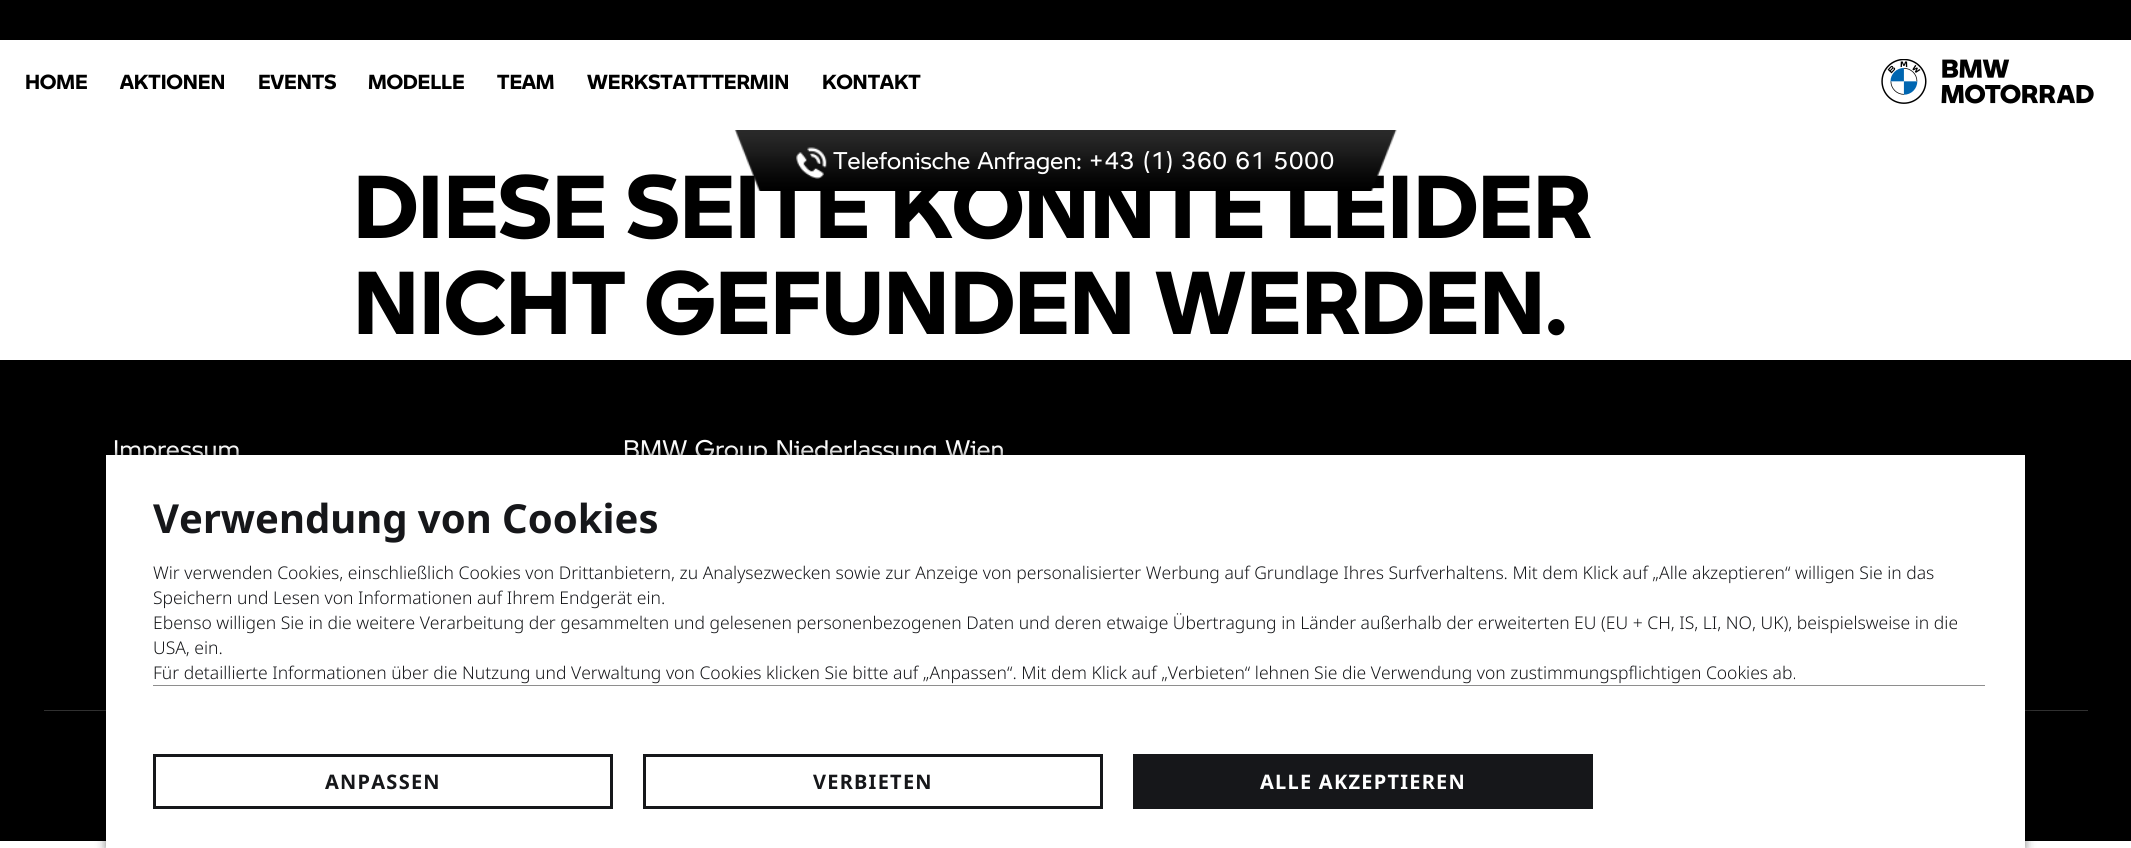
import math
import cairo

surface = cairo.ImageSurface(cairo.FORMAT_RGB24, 2131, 848)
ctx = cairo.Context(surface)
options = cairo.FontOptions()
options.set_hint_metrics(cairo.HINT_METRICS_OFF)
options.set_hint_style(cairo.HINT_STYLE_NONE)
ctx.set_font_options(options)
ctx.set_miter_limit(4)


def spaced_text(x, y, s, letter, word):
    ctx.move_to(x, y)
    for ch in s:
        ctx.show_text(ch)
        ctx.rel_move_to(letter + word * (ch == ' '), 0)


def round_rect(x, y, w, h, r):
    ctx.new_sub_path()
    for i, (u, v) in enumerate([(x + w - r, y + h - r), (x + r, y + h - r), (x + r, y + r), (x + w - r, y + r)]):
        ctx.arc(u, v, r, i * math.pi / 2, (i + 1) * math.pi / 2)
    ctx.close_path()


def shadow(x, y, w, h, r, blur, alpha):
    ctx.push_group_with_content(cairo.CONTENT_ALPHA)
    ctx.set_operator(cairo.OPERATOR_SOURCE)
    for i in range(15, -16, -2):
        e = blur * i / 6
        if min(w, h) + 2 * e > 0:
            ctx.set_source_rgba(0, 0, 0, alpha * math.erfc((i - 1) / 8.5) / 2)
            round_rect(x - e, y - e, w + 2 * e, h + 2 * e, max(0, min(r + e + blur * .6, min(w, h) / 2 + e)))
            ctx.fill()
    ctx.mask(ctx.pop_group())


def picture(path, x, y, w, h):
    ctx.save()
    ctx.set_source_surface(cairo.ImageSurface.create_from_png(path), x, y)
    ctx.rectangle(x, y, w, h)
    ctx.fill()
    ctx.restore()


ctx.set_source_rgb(1, 1, 1)
ctx.paint()
ctx.set_source_rgb(0, 0, 0)
ctx.rectangle(0, 0, 2131, 40)
ctx.fill()
ctx.select_font_face("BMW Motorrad", cairo.FONT_SLANT_NORMAL, cairo.FONT_WEIGHT_BOLD)
ctx.set_font_size(20)
ctx.move_to(25, 89)
ctx.show_text("HOME")
ctx.move_to(120, 89)
ctx.show_text("AKTIONEN")
ctx.move_to(258, 89)
ctx.show_text("EVENTS")
ctx.move_to(368, 89)
ctx.show_text("MODELLE")
ctx.move_to(497, 89)
ctx.show_text("TEAM")
ctx.move_to(587, 89)
ctx.show_text("WERKSTATTTERMIN")
ctx.move_to(822, 89)
ctx.show_text("KONTAKT")
picture("img1.png", 1881, 59, 213, 45)
ctx.set_font_size(87.5)
ctx.move_to(353, 238)
ctx.show_text("DIESE SEITE KONNTE LEIDER")
picture("img2.png", 734, 130, 663, 61)
picture("img3.png", 796, 147, 31, 32)
ctx.select_font_face("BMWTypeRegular")
ctx.set_font_size(23.75)
ctx.set_source_rgb(1, 1, 1)
ctx.move_to(833, 169)
ctx.show_text("Telefonische Anfragen: +43 (1) 360 61 5000")
ctx.select_font_face("BMW Motorrad", cairo.FONT_SLANT_NORMAL, cairo.FONT_WEIGHT_BOLD)
ctx.set_font_size(87.5)
ctx.set_source_rgb(0, 0, 0)
ctx.move_to(353, 334)
ctx.show_text("NICHT GEFUNDEN WERDEN.")
ctx.rectangle(0, 360, 2131, 481)
ctx.fill()
ctx.select_font_face("BMWTypeRegular")
ctx.set_font_size(25)
ctx.set_source_rgb(1, 1, 1)
ctx.move_to(113, 458)
ctx.show_text("Impressum")
ctx.move_to(623, 458)
ctx.show_text("BMW Group Niederlassung Wien")
ctx.set_source_rgb(0.188, 0.188, 0.188)
ctx.rectangle(44, 710, 2044, 1)
ctx.fill()
ctx.set_source_rgb(0, 0, 0)
shadow(106, 454, 1919, 394, 0, 5, 0.5)
ctx.set_source_rgb(1, 1, 1)
ctx.rectangle(106, 455, 1919, 393)
ctx.fill()
ctx.select_font_face("Noto Sans", cairo.FONT_SLANT_NORMAL, cairo.FONT_WEIGHT_BOLD)
ctx.set_font_size(40)
ctx.set_source_rgb(0.086, 0.09, 0.102)
ctx.move_to(153, 533)
ctx.show_text("Verwendung von Cookies")
ctx.select_font_face("Noto Sans Light")
ctx.set_font_size(17.5)
ctx.move_to(153, 579)
ctx.show_text("Wir verwenden Cookies, einschließlich Cookies von Drittanbietern, zu Analysezwecken sowie zur Anzeige von personalisierter Werbung auf Grundlage Ihres Surfverhaltens. Mit dem Klick auf „Alle akzeptieren“ willigen Sie in das")
ctx.move_to(153, 604)
ctx.show_text("Speichern und Lesen von Informationen auf Ihrem Endgerät ein.")
ctx.move_to(153, 629)
ctx.show_text("Ebenso willigen Sie in die weitere Verarbeitung der gesammelten und gelesenen personenbezogenen Daten und deren etwaige Übertragung in Länder außerhalb der erweiterten EU (EU + CH, IS, LI, NO, UK), beispielsweise in die")
ctx.move_to(153, 654)
ctx.show_text("USA, ein.")
ctx.move_to(153, 679)
ctx.show_text("Für detaillierte Informationen über die Nutzung und Verwaltung von Cookies klicken Sie bitte auf „Anpassen“. Mit dem Klick auf „Verbieten“ lehnen Sie die Verwendung von zustimmungspflichtigen Cookies ab.")
ctx.set_source_rgb(0.557, 0.557, 0.557)
ctx.rectangle(153, 685, 1832, 1)
ctx.fill()
ctx.rectangle(154.5, 755.5, 457, 52)
ctx.set_source_rgb(0.086, 0.09, 0.102)
ctx.set_line_width(3)
ctx.stroke()
ctx.select_font_face("Noto Sans", cairo.FONT_SLANT_NORMAL, cairo.FONT_WEIGHT_BOLD)
ctx.set_font_size(20)
spaced_text(325, 789, "ANPASSEN", 1.25, 0)
ctx.rectangle(644.5, 755.5, 457, 52)
ctx.stroke()
spaced_text(813, 789, "VERBIETEN", 1.25, 0)
ctx.rectangle(1133, 754, 460, 55)
ctx.fill()
ctx.set_source_rgb(1, 1, 1)
spaced_text(1260, 789, "ALLE AKZEPTIEREN", 1.25, 0)
surface.write_to_png("page.png")
